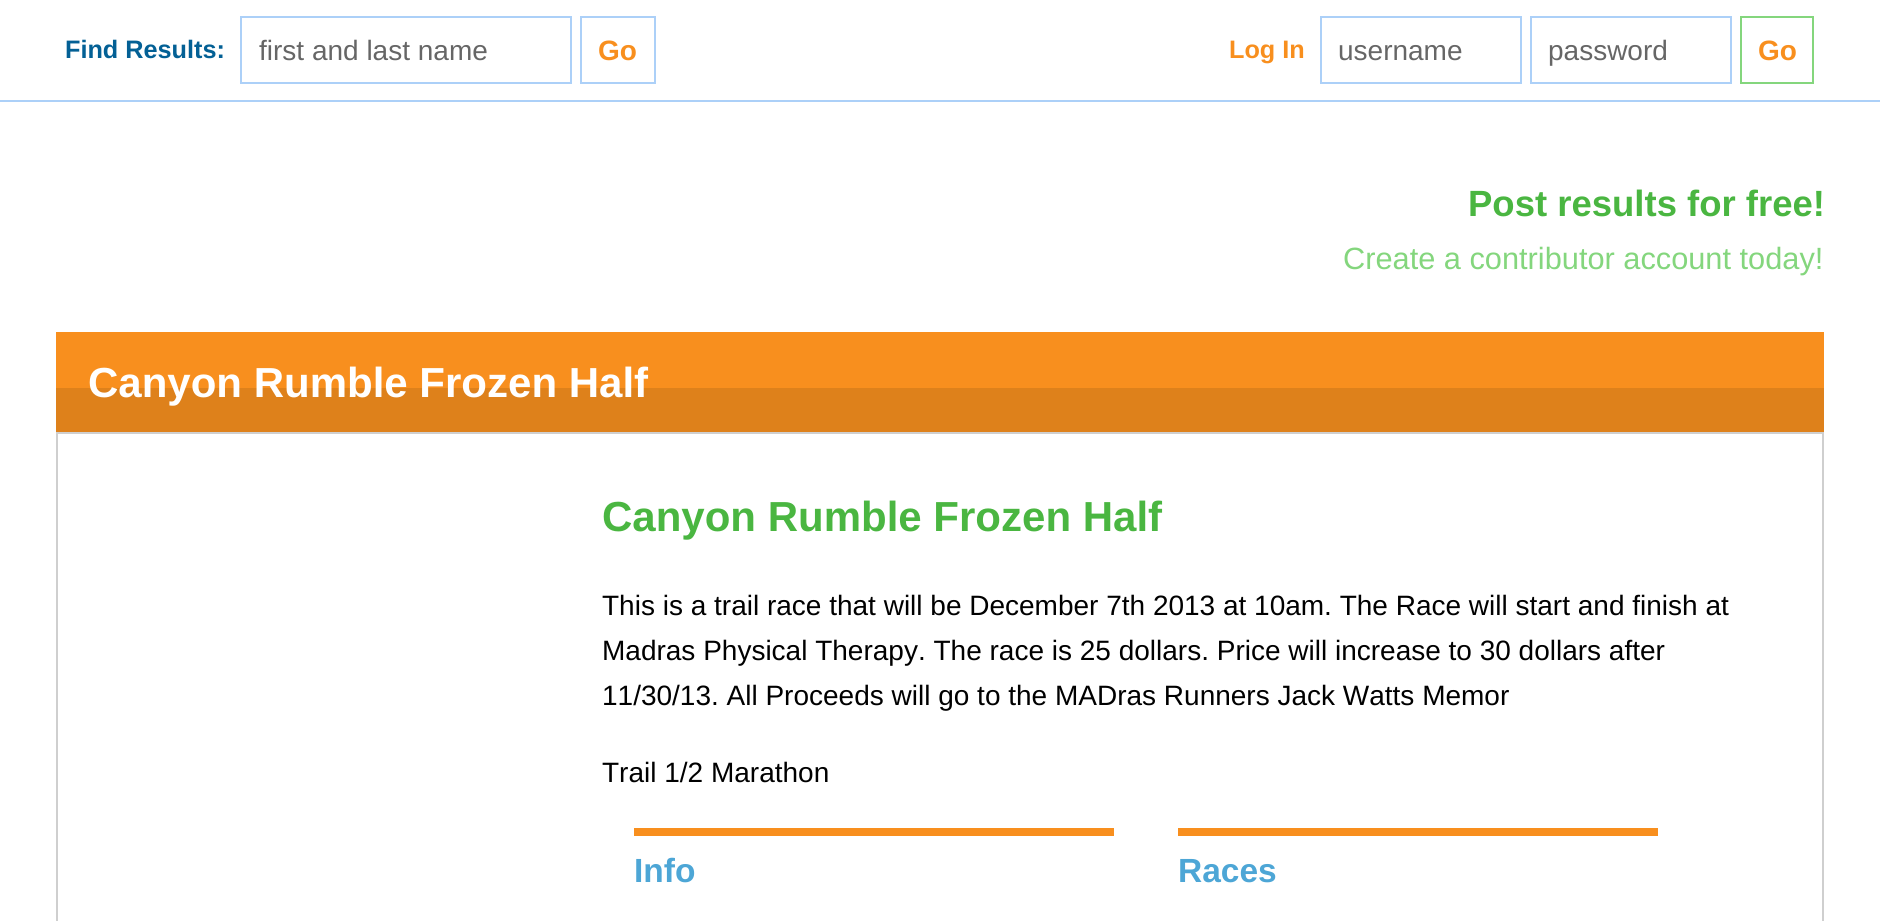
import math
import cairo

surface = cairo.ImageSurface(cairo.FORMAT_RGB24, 1880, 921)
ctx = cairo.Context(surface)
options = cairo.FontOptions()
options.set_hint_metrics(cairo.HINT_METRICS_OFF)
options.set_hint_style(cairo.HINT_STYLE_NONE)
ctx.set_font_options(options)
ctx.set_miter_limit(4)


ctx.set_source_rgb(1, 1, 1)
ctx.paint()
ctx.set_source_rgb(0.675, 0.816, 0.969)
ctx.rectangle(0, 100, 1880, 2)
ctx.fill()
ctx.select_font_face("Liberation Sans", cairo.FONT_SLANT_NORMAL, cairo.FONT_WEIGHT_BOLD)
ctx.set_font_size(25.25)
ctx.set_source_rgb(0.012, 0.376, 0.584)
ctx.move_to(65, 58)
ctx.show_text("Find Results:")
ctx.rectangle(241, 17, 330, 66)
ctx.set_source_rgb(0.675, 0.816, 0.969)
ctx.stroke()
ctx.select_font_face("Liberation Sans")
ctx.set_font_size(28)
ctx.set_source_rgb(0.4, 0.4, 0.4)
ctx.move_to(259, 60)
ctx.show_text("first and last name")
ctx.rectangle(581, 17, 74, 66)
ctx.set_source_rgb(0.675, 0.816, 0.969)
ctx.stroke()
ctx.select_font_face("Liberation Sans", cairo.FONT_SLANT_NORMAL, cairo.FONT_WEIGHT_BOLD)
ctx.set_source_rgb(0.969, 0.561, 0.118)
ctx.move_to(598, 60)
ctx.show_text("Go")
ctx.set_font_size(25.25)
ctx.move_to(1229, 58)
ctx.show_text("Log In")
ctx.rectangle(1321, 17, 200, 66)
ctx.set_source_rgb(0.675, 0.816, 0.969)
ctx.stroke()
ctx.select_font_face("Liberation Sans")
ctx.set_font_size(28)
ctx.set_source_rgb(0.4, 0.4, 0.4)
ctx.move_to(1338, 60)
ctx.show_text("username")
ctx.rectangle(1531, 17, 200, 66)
ctx.set_source_rgb(0.675, 0.816, 0.969)
ctx.stroke()
ctx.set_source_rgb(0.4, 0.4, 0.4)
ctx.move_to(1548, 60)
ctx.show_text("password")
ctx.rectangle(1741, 17, 72, 66)
ctx.set_source_rgb(0.518, 0.839, 0.49)
ctx.stroke()
ctx.select_font_face("Liberation Sans", cairo.FONT_SLANT_NORMAL, cairo.FONT_WEIGHT_BOLD)
ctx.set_source_rgb(0.969, 0.561, 0.118)
ctx.move_to(1758, 60)
ctx.show_text("Go")
ctx.set_font_size(36.5)
ctx.set_source_rgb(0.29, 0.714, 0.255)
ctx.move_to(1468, 216)
ctx.show_text("Post results for free!")
ctx.select_font_face("Liberation Sans")
ctx.set_font_size(30.75)
ctx.set_source_rgb(0.518, 0.839, 0.49)
ctx.move_to(1343, 269)
ctx.show_text("Create a contributor account today!")
ctx.set_source_rgb(0.969, 0.561, 0.118)
ctx.rectangle(56, 332, 1768, 56)
ctx.fill()
ctx.set_source_rgb(0.871, 0.506, 0.106)
ctx.rectangle(56, 388, 1768, 44)
ctx.fill()
ctx.select_font_face("Liberation Sans", cairo.FONT_SLANT_NORMAL, cairo.FONT_WEIGHT_BOLD)
ctx.set_font_size(42)
ctx.set_source_rgb(1, 1, 1)
ctx.move_to(88, 397)
ctx.show_text("Canyon Rumble Frozen Half")
ctx.rectangle(57, 433, 1766, 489)
ctx.set_source_rgb(0.812, 0.812, 0.812)
ctx.stroke()
ctx.set_source_rgb(0.29, 0.714, 0.255)
ctx.move_to(602, 531)
ctx.show_text("Canyon Rumble Frozen Half")
ctx.select_font_face("Liberation Sans")
ctx.set_font_size(28)
ctx.set_source_rgb(0, 0, 0)
ctx.move_to(602, 615)
ctx.show_text("This is a trail race that will be December 7th 2013 at 10am. The Race will start and finish at")
ctx.move_to(602, 660)
ctx.show_text("Madras Physical Therapy. The race is 25 dollars. Price will increase to 30 dollars after")
ctx.move_to(602, 705)
ctx.show_text("11/30/13. All Proceeds will go to the MADras Runners Jack Watts Memor")
ctx.move_to(602, 782)
ctx.show_text("Trail 1/2 Marathon")
ctx.set_source_rgb(0.969, 0.561, 0.118)
ctx.rectangle(634, 828, 480, 8)
ctx.fill()
ctx.select_font_face("Liberation Sans", cairo.FONT_SLANT_NORMAL, cairo.FONT_WEIGHT_BOLD)
ctx.set_font_size(33.5)
ctx.set_source_rgb(0.302, 0.651, 0.839)
ctx.move_to(634, 882)
ctx.show_text("Info")
ctx.set_source_rgb(0.969, 0.561, 0.118)
ctx.rectangle(1178, 828, 480, 8)
ctx.fill()
ctx.set_source_rgb(0.302, 0.651, 0.839)
ctx.move_to(1178, 882)
ctx.show_text("Races")
surface.write_to_png("page.png")
